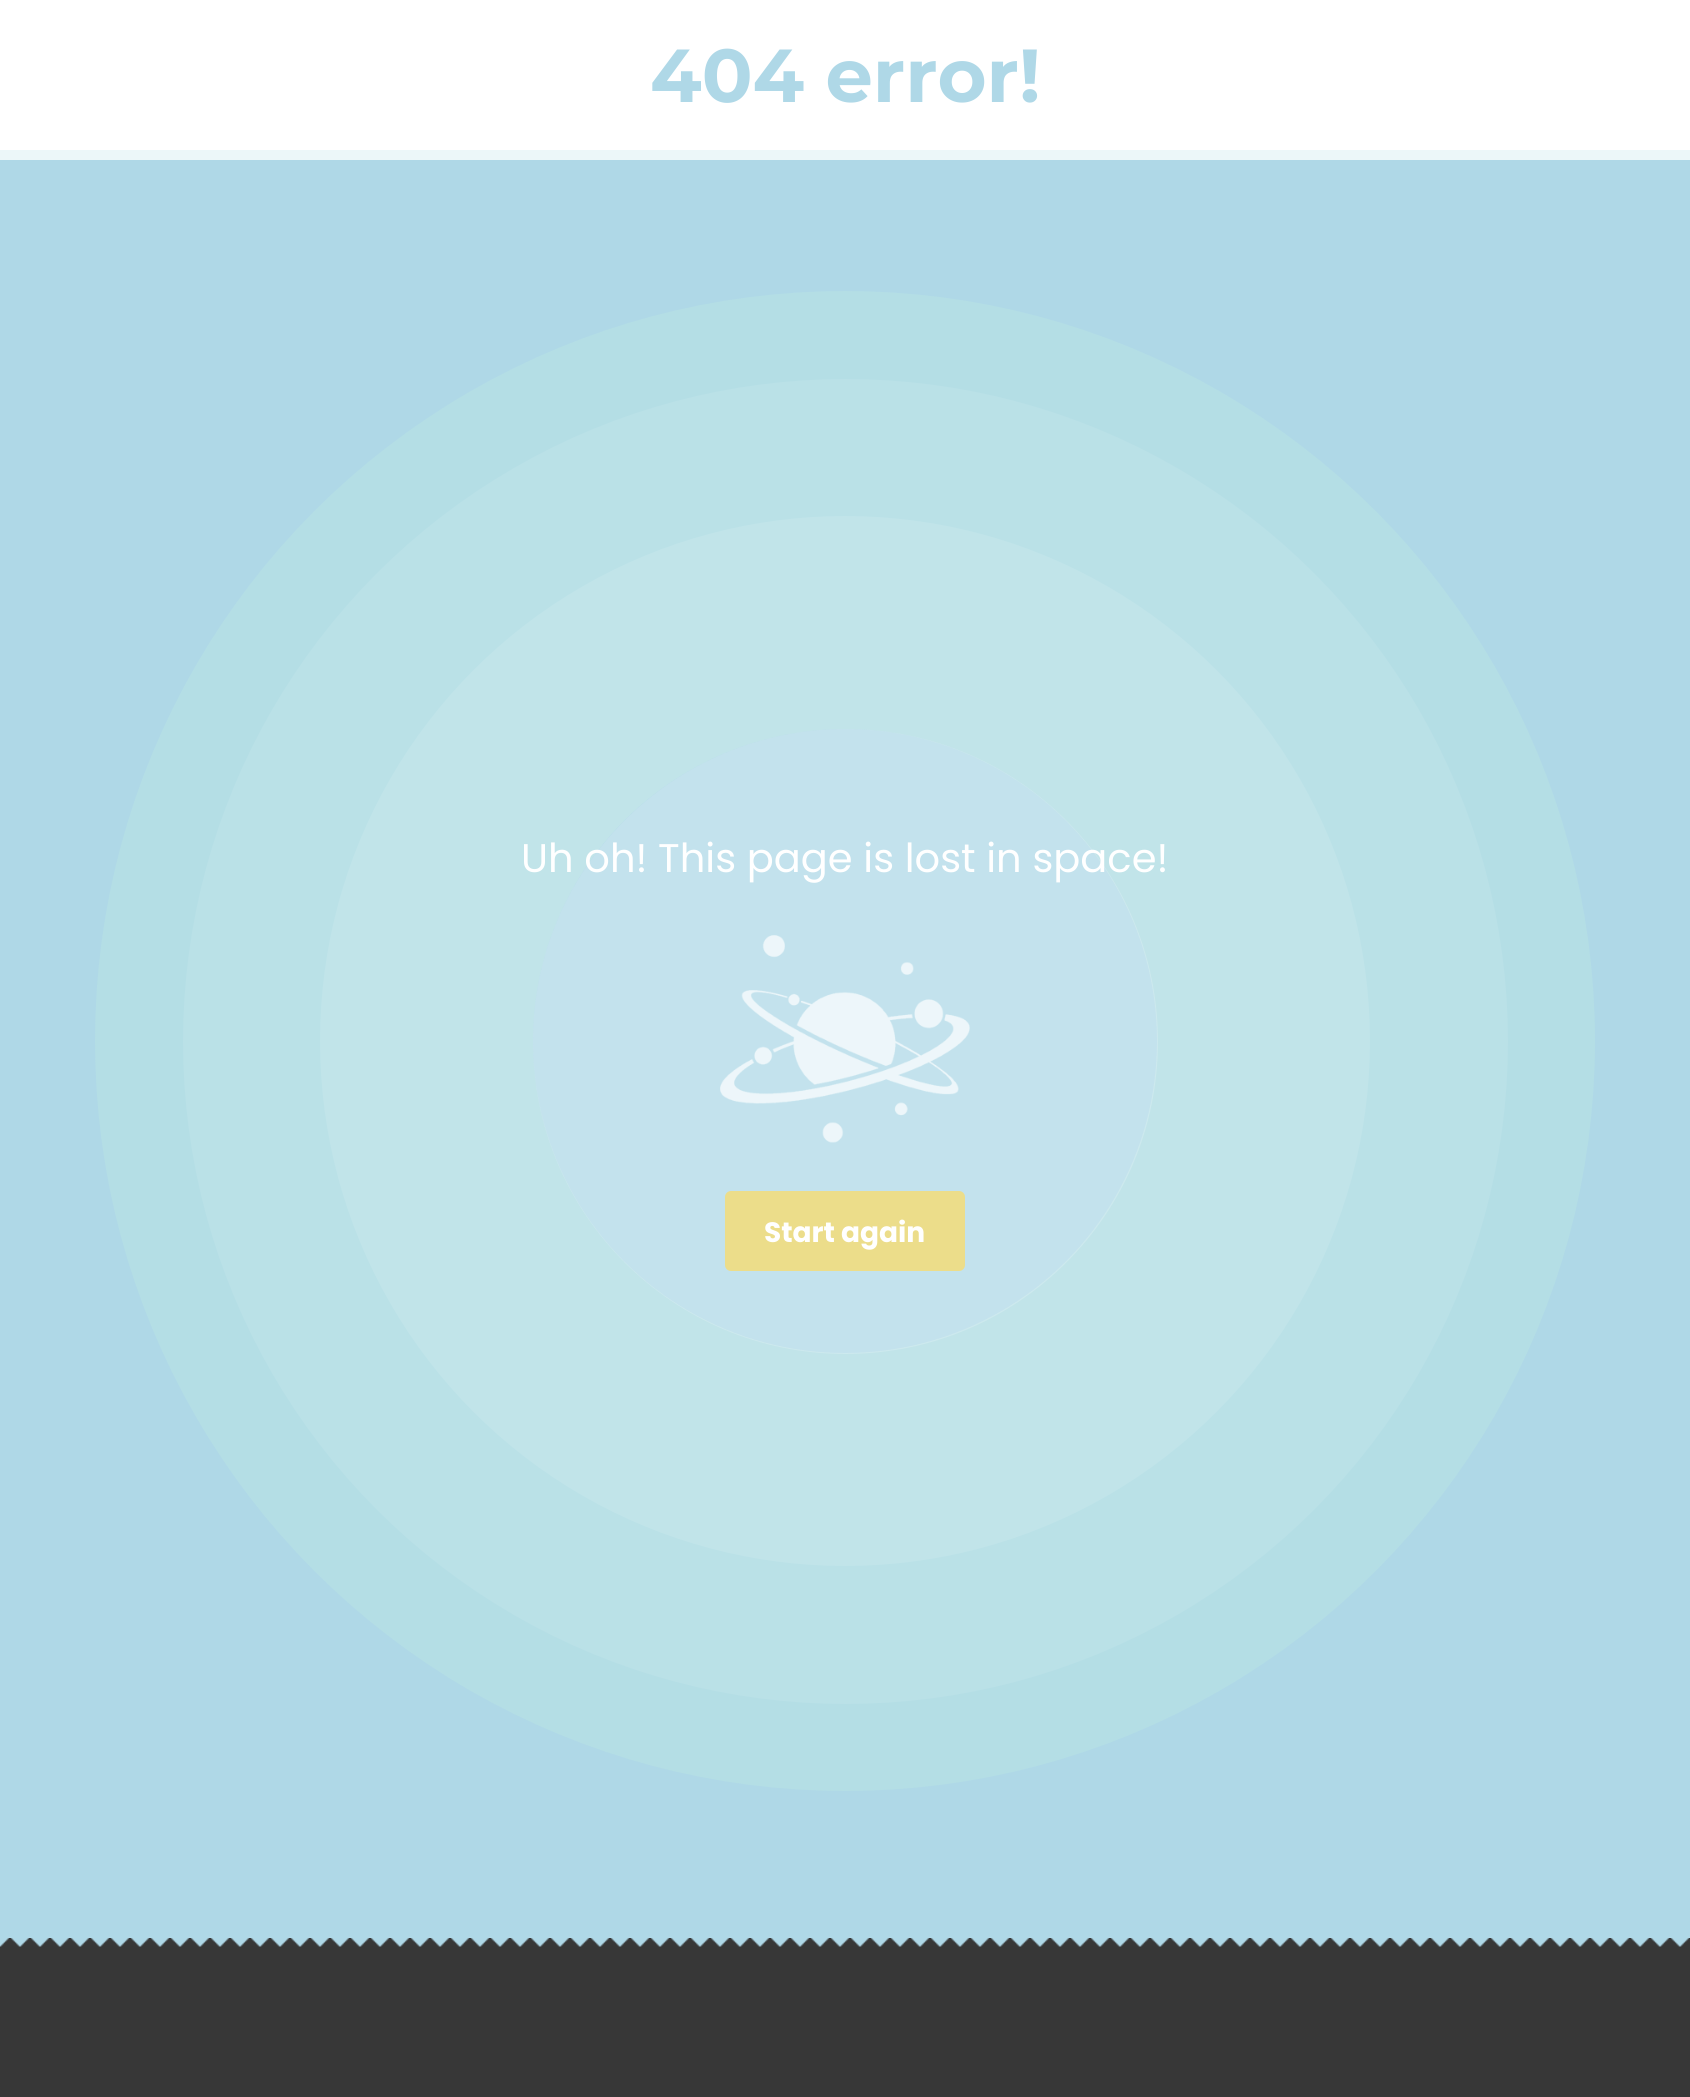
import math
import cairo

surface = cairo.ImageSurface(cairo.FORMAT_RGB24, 1690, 2097)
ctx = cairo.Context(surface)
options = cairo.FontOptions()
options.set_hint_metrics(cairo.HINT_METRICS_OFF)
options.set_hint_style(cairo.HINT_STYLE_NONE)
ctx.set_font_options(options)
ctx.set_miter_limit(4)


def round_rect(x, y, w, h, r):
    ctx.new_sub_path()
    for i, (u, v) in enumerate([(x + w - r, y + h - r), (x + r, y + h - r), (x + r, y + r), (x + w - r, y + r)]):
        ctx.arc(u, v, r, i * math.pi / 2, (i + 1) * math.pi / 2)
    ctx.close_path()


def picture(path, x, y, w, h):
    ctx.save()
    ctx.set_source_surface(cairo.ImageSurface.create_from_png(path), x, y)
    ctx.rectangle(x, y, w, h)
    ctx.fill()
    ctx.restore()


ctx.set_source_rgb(0.686, 0.847, 0.906)
ctx.paint()
ctx.set_source_rgb(1, 1, 1)
ctx.rectangle(0, 0, 1690, 150)
ctx.fill()
ctx.select_font_face("Montserrat", cairo.FONT_SLANT_NORMAL, cairo.FONT_WEIGHT_BOLD)
ctx.set_font_size(75)
ctx.set_source_rgb(0.686, 0.847, 0.906)
ctx.move_to(650, 102)
ctx.show_text("404 error!")
ctx.set_source_rgb(0.922, 0.965, 0.976)
ctx.rectangle(0, 150, 1690, 10)
ctx.fill()
ctx.arc(845, 1041, 531, 0, 2 * math.pi)
ctx.set_source_rgb(0.706, 0.871, 0.898)
ctx.set_line_width(438)
ctx.stroke()
ctx.arc(845.5, 1041.5, 487.5, 0, 2 * math.pi)
ctx.set_source_rgba(1, 1, 1, 0.08)
ctx.set_line_width(350)
ctx.stroke()
ctx.arc(845, 1041, 418.5, 0, 2 * math.pi)
ctx.set_source_rgba(1, 1, 1, 0.1)
ctx.set_line_width(213)
ctx.stroke()
ctx.set_source_rgba(1, 1, 1, 0.25)
ctx.arc(845.5, 1041.5, 312.5, 0, 2 * math.pi)
ctx.fill()
picture("img1.png", 720, 935, 250, 208)
ctx.select_font_face("Poppins")
ctx.set_font_size(40)
ctx.set_source_rgb(1, 1, 1)
ctx.move_to(521, 872)
ctx.show_text("Uh oh! This page is lost in space!")
ctx.set_source_rgb(0.925, 0.867, 0.541)
round_rect(725, 1191, 240, 80, 6)
ctx.fill()
ctx.select_font_face("Poppins", cairo.FONT_SLANT_NORMAL, cairo.FONT_WEIGHT_BOLD)
ctx.set_font_size(28)
ctx.set_source_rgb(1, 1, 1)
ctx.move_to(764, 1242)
ctx.show_text("Start again")
ctx.set_source_rgb(0.216, 0.216, 0.216)
ctx.rectangle(0, 1948, 1690, 149)
ctx.fill()
picture("img2.png", 0, 1938, 1690, 10)
surface.write_to_png("page.png")
